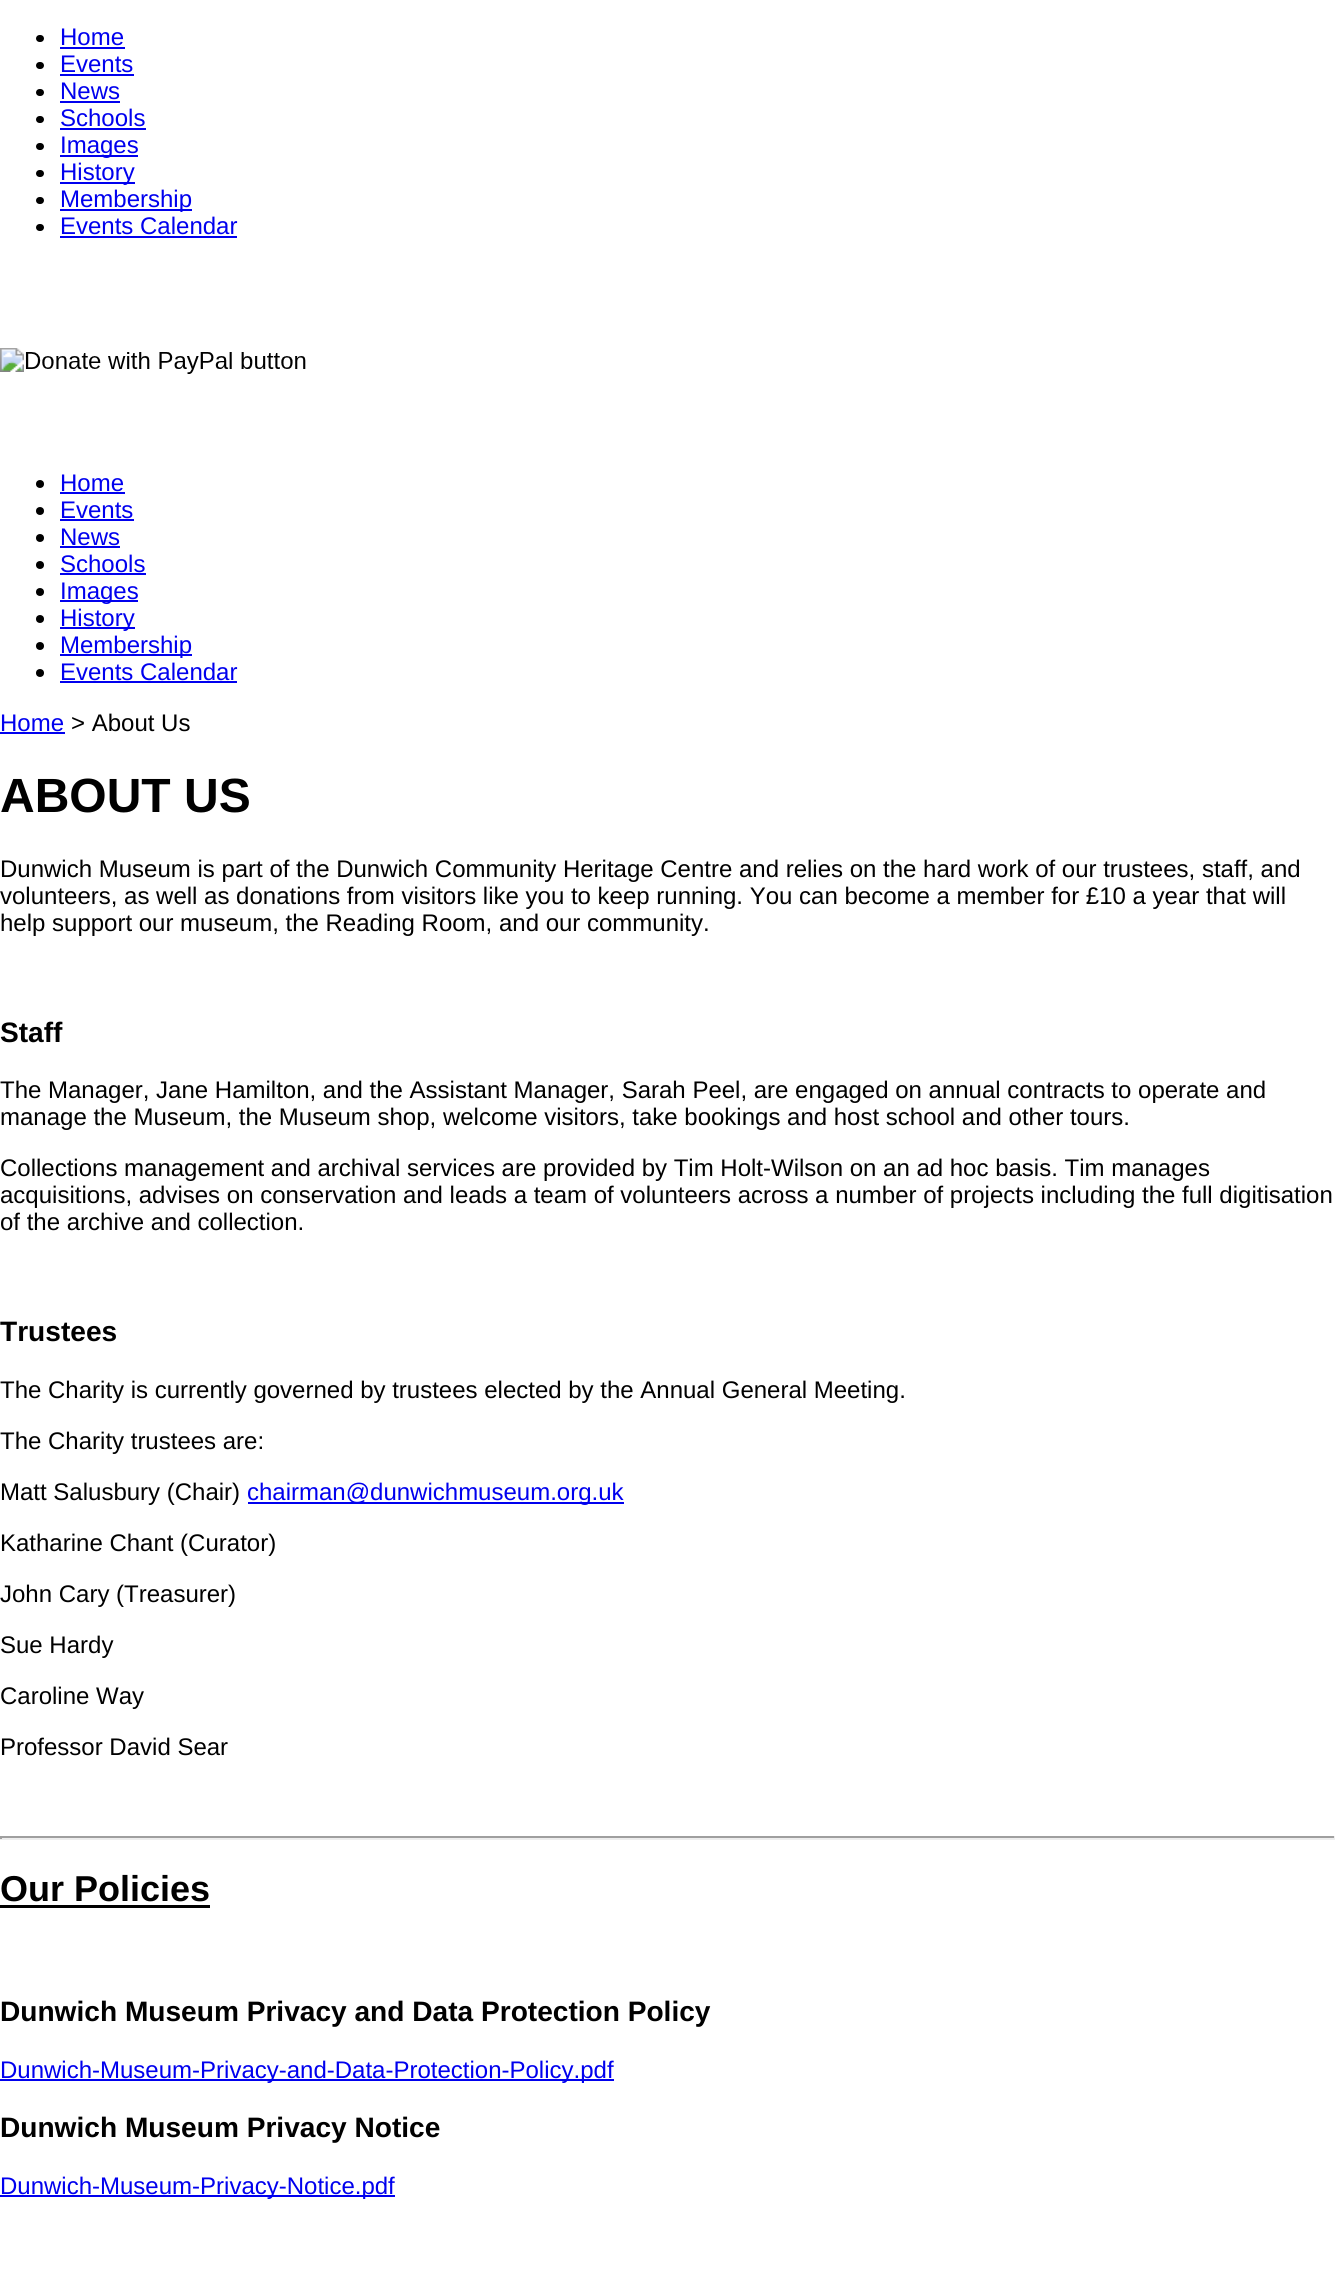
import math
import cairo

surface = cairo.ImageSurface(cairo.FORMAT_RGB24, 1335, 2272)
ctx = cairo.Context(surface)
options = cairo.FontOptions()
options.set_hint_metrics(cairo.HINT_METRICS_OFF)
options.set_hint_style(cairo.HINT_STYLE_NONE)
ctx.set_font_options(options)
ctx.set_miter_limit(4)


def round_rect(x, y, w, h, r):
    ctx.new_sub_path()
    for i, (u, v) in enumerate([(x + w - r, y + h - r), (x + r, y + h - r), (x + r, y + r), (x + w - r, y + r)]):
        ctx.arc(u, v, r, i * math.pi / 2, (i + 1) * math.pi / 2)
    ctx.close_path()


def picture(path, x, y, w, h):
    ctx.save()
    ctx.set_source_surface(cairo.ImageSurface.create_from_png(path), x, y)
    ctx.rectangle(x, y, w, h)
    ctx.fill()
    ctx.restore()


ctx.set_source_rgb(1, 1, 1)
ctx.paint()
ctx.set_source_rgb(0, 0, 0)
round_rect(36, 35, 8, 7, 3.5)
ctx.fill()
ctx.select_font_face("Liberation Sans")
ctx.set_font_size(24)
ctx.set_source_rgb(0, 0, 0.933)
ctx.move_to(60, 45)
ctx.show_text("Home")
ctx.rectangle(60, 47, 65, 2)
ctx.fill()
ctx.set_source_rgb(0, 0, 0)
round_rect(36, 62, 8, 7, 3.5)
ctx.fill()
ctx.set_source_rgb(0, 0, 0.933)
ctx.move_to(60, 72)
ctx.show_text("Events")
ctx.rectangle(60, 74, 74, 2)
ctx.fill()
ctx.set_source_rgb(0, 0, 0)
round_rect(36, 89, 8, 7, 3.5)
ctx.fill()
ctx.set_source_rgb(0, 0, 0.933)
ctx.move_to(60, 99)
ctx.show_text("News")
ctx.rectangle(60, 101, 60, 2)
ctx.fill()
ctx.set_source_rgb(0, 0, 0)
round_rect(36, 116, 8, 7, 3.5)
ctx.fill()
ctx.set_source_rgb(0, 0, 0.933)
ctx.move_to(60, 126)
ctx.show_text("Schools")
ctx.rectangle(60, 128, 86, 2)
ctx.fill()
ctx.set_source_rgb(0, 0, 0)
round_rect(36, 143, 8, 7, 3.5)
ctx.fill()
ctx.set_source_rgb(0, 0, 0.933)
ctx.rectangle(60, 155, 78, 2)
ctx.fill()
ctx.move_to(60, 153)
ctx.show_text("Images")
ctx.set_source_rgb(0, 0, 0)
round_rect(36, 170, 8, 7, 3.5)
ctx.fill()
ctx.set_source_rgb(0, 0, 0.933)
ctx.rectangle(60, 182, 75, 2)
ctx.fill()
ctx.move_to(60, 180)
ctx.show_text("History")
ctx.set_source_rgb(0, 0, 0)
round_rect(36, 197, 8, 7, 3.5)
ctx.fill()
ctx.set_source_rgb(0, 0, 0.933)
ctx.rectangle(60, 209, 132, 2)
ctx.fill()
ctx.move_to(60, 207)
ctx.show_text("Membership")
ctx.set_source_rgb(0, 0, 0)
round_rect(36, 224, 8, 7, 3.5)
ctx.fill()
ctx.set_source_rgb(0, 0, 0.933)
ctx.move_to(60, 234)
ctx.show_text("Events Calendar")
ctx.rectangle(60, 236, 177, 2)
ctx.fill()
picture("img1.png", 0, 348, 306, 26)
ctx.set_source_rgb(0, 0, 0)
ctx.arc(40, 484, 4, 0, 2 * math.pi)
ctx.fill()
ctx.set_source_rgb(0, 0, 0.933)
ctx.move_to(60, 491)
ctx.show_text("Home")
ctx.rectangle(60, 492, 65, 2)
ctx.fill()
ctx.set_source_rgb(0, 0, 0)
ctx.arc(40, 511, 4, 0, 2 * math.pi)
ctx.fill()
ctx.set_source_rgb(0, 0, 0.933)
ctx.move_to(60, 518)
ctx.show_text("Events")
ctx.rectangle(60, 519, 74, 2)
ctx.fill()
ctx.set_source_rgb(0, 0, 0)
ctx.arc(40, 538, 4, 0, 2 * math.pi)
ctx.fill()
ctx.set_source_rgb(0, 0, 0.933)
ctx.move_to(60, 545)
ctx.show_text("News")
ctx.rectangle(60, 546, 60, 2)
ctx.fill()
ctx.set_source_rgb(0, 0, 0)
ctx.arc(40, 565, 4, 0, 2 * math.pi)
ctx.fill()
ctx.set_source_rgb(0, 0, 0.933)
ctx.move_to(60, 572)
ctx.show_text("Schools")
ctx.rectangle(60, 573, 86, 2)
ctx.fill()
ctx.set_source_rgb(0, 0, 0)
ctx.arc(40, 592, 4, 0, 2 * math.pi)
ctx.fill()
ctx.set_source_rgb(0, 0, 0.933)
ctx.rectangle(60, 600, 78, 2)
ctx.fill()
ctx.move_to(60, 599)
ctx.show_text("Images")
ctx.set_source_rgb(0, 0, 0)
ctx.new_path()
ctx.arc(40, 619, 4, 0, 2 * math.pi)
ctx.fill()
ctx.set_source_rgb(0, 0, 0.933)
ctx.rectangle(60, 627, 75, 2)
ctx.fill()
ctx.move_to(60, 626)
ctx.show_text("History")
ctx.set_source_rgb(0, 0, 0)
ctx.new_path()
ctx.arc(40, 646, 4, 0, 2 * math.pi)
ctx.fill()
ctx.set_source_rgb(0, 0, 0.933)
ctx.rectangle(60, 654, 132, 2)
ctx.fill()
ctx.move_to(60, 653)
ctx.show_text("Membership")
ctx.set_source_rgb(0, 0, 0)
ctx.new_path()
ctx.arc(40, 673, 4, 0, 2 * math.pi)
ctx.fill()
ctx.set_source_rgb(0, 0, 0.933)
ctx.move_to(60, 680)
ctx.show_text("Events Calendar")
ctx.rectangle(60, 681, 177, 2)
ctx.fill()
ctx.move_to(0, 731)
ctx.show_text("Home")
ctx.rectangle(0, 732, 65, 2)
ctx.fill()
ctx.set_source_rgb(0, 0, 0)
ctx.move_to(71, 731)
ctx.show_text("> About Us")
ctx.select_font_face("Liberation Sans", cairo.FONT_SLANT_NORMAL, cairo.FONT_WEIGHT_BOLD)
ctx.set_font_size(48)
ctx.move_to(0, 812)
ctx.show_text("ABOUT US")
ctx.select_font_face("Liberation Sans")
ctx.set_font_size(24)
ctx.move_to(0, 877)
ctx.show_text("Dunwich Museum is part of the Dunwich Community Heritage Centre and relies on the hard work of our trustees, staff, and")
ctx.move_to(0, 904)
ctx.show_text("volunteers, as well as donations from visitors like you to keep running. You can become a member for £10 a year that will")
ctx.move_to(0, 931)
ctx.show_text("help support our museum, the Reading Room, and our community.")
ctx.select_font_face("Liberation Sans", cairo.FONT_SLANT_NORMAL, cairo.FONT_WEIGHT_BOLD)
ctx.set_font_size(28.1)
ctx.move_to(0, 1042)
ctx.show_text("Staff")
ctx.select_font_face("Liberation Sans")
ctx.set_font_size(24)
ctx.move_to(0, 1098)
ctx.show_text("The Manager, Jane Hamilton, and the Assistant Manager, Sarah Peel, are engaged on annual contracts to operate and")
ctx.move_to(0, 1125)
ctx.show_text("manage the Museum, the Museum shop, welcome visitors, take bookings and host school and other tours.")
ctx.move_to(0, 1176)
ctx.show_text("Collections management and archival services are provided by Tim Holt-Wilson on an ad hoc basis. Tim manages")
ctx.move_to(0, 1203)
ctx.show_text("acquisitions, advises on conservation and leads a team of volunteers across a number of projects including the full digitisation")
ctx.move_to(0, 1230)
ctx.show_text("of the archive and collection.")
ctx.select_font_face("Liberation Sans", cairo.FONT_SLANT_NORMAL, cairo.FONT_WEIGHT_BOLD)
ctx.set_font_size(28.1)
ctx.move_to(0, 1341)
ctx.show_text("Trustees")
ctx.select_font_face("Liberation Sans")
ctx.set_font_size(24)
ctx.move_to(0, 1398)
ctx.show_text("The Charity is currently governed by trustees elected by the Annual General Meeting.")
ctx.move_to(0, 1449)
ctx.show_text("The Charity trustees are:")
ctx.move_to(0, 1500)
ctx.show_text("Matt Salusbury (Chair)")
ctx.set_source_rgb(0, 0, 0.933)
ctx.rectangle(248, 1502, 376, 2)
ctx.fill()
ctx.move_to(247, 1500)
ctx.show_text("chairman@dunwichmuseum.org.uk")
ctx.set_source_rgb(0, 0, 0)
ctx.move_to(0, 1551)
ctx.show_text("Katharine Chant (Curator)")
ctx.move_to(0, 1602)
ctx.show_text("John Cary (Treasurer)")
ctx.move_to(0, 1653)
ctx.show_text("Sue Hardy")
ctx.move_to(0, 1704)
ctx.show_text("Caroline Way")
ctx.move_to(0, 1755)
ctx.show_text("Professor David Sear")
ctx.set_source_rgb(0.624, 0.624, 0.624)
ctx.rectangle(0, 1836, 1335, 2)
ctx.fill()
ctx.set_source_rgb(0.933, 0.933, 0.933)
ctx.rectangle(1334, 1836, 1, 3)
ctx.fill()
ctx.rectangle(0, 1838, 1335, 2)
ctx.fill()
ctx.set_source_rgb(0.624, 0.624, 0.624)
ctx.rectangle(0, 1836, 2, 3)
ctx.fill()
ctx.select_font_face("Liberation Sans", cairo.FONT_SLANT_NORMAL, cairo.FONT_WEIGHT_BOLD)
ctx.set_font_size(36)
ctx.set_source_rgb(0, 0, 0)
ctx.move_to(0, 1901)
ctx.show_text("Our Policies")
ctx.rectangle(0, 1905, 210, 3)
ctx.fill()
ctx.set_font_size(28.1)
ctx.move_to(0, 2021)
ctx.show_text("Dunwich Museum Privacy and Data Protection Policy")
ctx.set_source_rgb(0, 0, 0.933)
ctx.rectangle(0, 2079, 614, 2)
ctx.fill()
ctx.select_font_face("Liberation Sans")
ctx.set_font_size(24)
ctx.move_to(0, 2078)
ctx.show_text("Dunwich-Museum-Privacy-and-Data-Protection-Policy.pdf")
ctx.select_font_face("Liberation Sans", cairo.FONT_SLANT_NORMAL, cairo.FONT_WEIGHT_BOLD)
ctx.set_font_size(28.1)
ctx.set_source_rgb(0, 0, 0)
ctx.move_to(0, 2137)
ctx.show_text("Dunwich Museum Privacy Notice")
ctx.set_source_rgb(0, 0, 0.933)
ctx.rectangle(0, 2195, 395, 2)
ctx.fill()
ctx.select_font_face("Liberation Sans")
ctx.set_font_size(24)
ctx.move_to(0, 2194)
ctx.show_text("Dunwich-Museum-Privacy-Notice.pdf")
surface.write_to_png("page.png")
